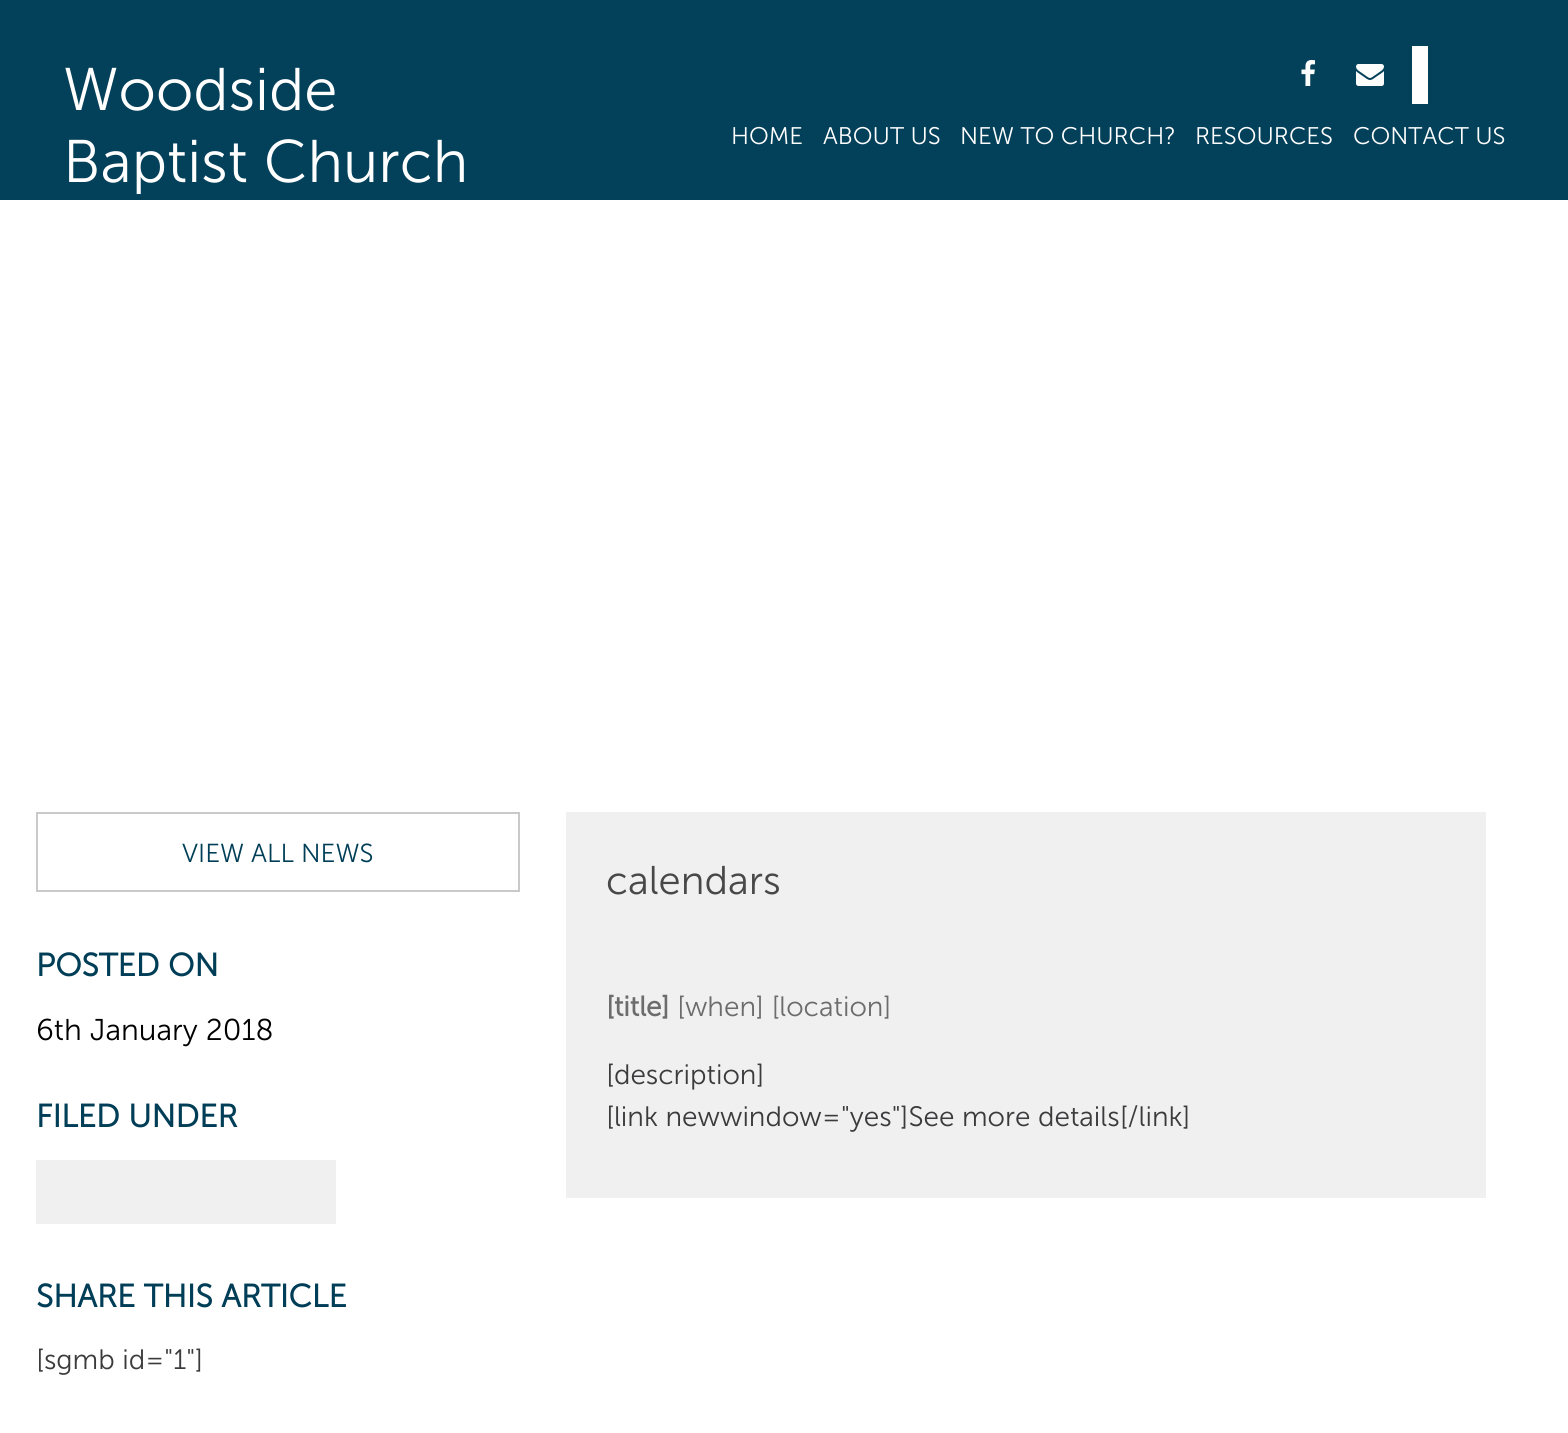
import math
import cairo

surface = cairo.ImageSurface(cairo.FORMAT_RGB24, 1568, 1433)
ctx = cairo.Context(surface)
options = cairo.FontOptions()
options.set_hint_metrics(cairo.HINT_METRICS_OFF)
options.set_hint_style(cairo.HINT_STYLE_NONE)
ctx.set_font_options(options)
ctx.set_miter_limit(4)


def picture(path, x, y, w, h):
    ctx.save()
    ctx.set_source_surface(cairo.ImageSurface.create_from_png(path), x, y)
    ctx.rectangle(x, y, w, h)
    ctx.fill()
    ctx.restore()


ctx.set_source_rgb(1, 1, 1)
ctx.paint()
ctx.set_source_rgb(0.012, 0.251, 0.349)
ctx.rectangle(0, 0, 1568, 200)
ctx.fill()
ctx.select_font_face("Museo Sans Light")
ctx.set_font_size(60)
ctx.set_source_rgb(1, 1, 1)
ctx.move_to(63, 110)
ctx.show_text("Woodside")
ctx.move_to(63, 182)
ctx.show_text("Baptist Church")
picture("img1.png", 1301, 60, 14, 26)
picture("img2.png", 1356, 64, 28, 22)
ctx.rectangle(1412, 46, 16, 58)
ctx.fill()
ctx.set_font_size(24)
ctx.move_to(731, 144)
ctx.show_text("HOME")
ctx.move_to(823, 144)
ctx.show_text("ABOUT US")
ctx.move_to(960, 144)
ctx.show_text("NEW TO CHURCH?")
ctx.move_to(1195, 144)
ctx.show_text("RESOURCES")
ctx.move_to(1353, 144)
ctx.show_text("CONTACT US")
ctx.rectangle(37, 813, 482, 78)
ctx.set_source_rgb(0.792, 0.788, 0.788)
ctx.stroke()
ctx.set_font_size(26)
ctx.set_source_rgb(0, 0.243, 0.341)
ctx.move_to(182, 862)
ctx.show_text("VIEW ALL NEWS")
ctx.select_font_face("Museo Sans", cairo.FONT_SLANT_NORMAL, cairo.FONT_WEIGHT_BOLD)
ctx.set_font_size(32)
ctx.move_to(36, 976)
ctx.show_text("POSTED ON")
ctx.select_font_face("Museo Sans Light")
ctx.set_font_size(30)
ctx.set_source_rgb(0, 0, 0)
ctx.move_to(36, 1040)
ctx.show_text("6th January 2018")
ctx.select_font_face("Museo Sans", cairo.FONT_SLANT_NORMAL, cairo.FONT_WEIGHT_BOLD)
ctx.set_font_size(32)
ctx.set_source_rgb(0, 0.243, 0.341)
ctx.move_to(36, 1127)
ctx.show_text("FILED UNDER")
ctx.set_source_rgb(0.941, 0.941, 0.941)
ctx.rectangle(36, 1160, 300, 64)
ctx.fill()
ctx.set_source_rgb(0, 0.243, 0.341)
ctx.move_to(36, 1307)
ctx.show_text("SHARE THIS ARTICLE")
ctx.select_font_face("Museo Sans Light")
ctx.set_font_size(28)
ctx.set_source_rgb(0.231, 0.231, 0.239)
ctx.move_to(36, 1369)
ctx.show_text("[sgmb id=\"1\"]")
ctx.set_source_rgb(0.941, 0.941, 0.941)
ctx.rectangle(566, 812, 920, 386)
ctx.fill()
ctx.set_font_size(40)
ctx.set_source_rgb(0.282, 0.282, 0.282)
ctx.move_to(606, 894)
ctx.show_text("calendars")
ctx.select_font_face("Museo Sans", cairo.FONT_SLANT_NORMAL, cairo.FONT_WEIGHT_BOLD)
ctx.set_font_size(28)
ctx.set_source_rgb(0.424, 0.424, 0.424)
ctx.move_to(606, 1016)
ctx.show_text("[title]")
ctx.select_font_face("Museo Sans Light")
ctx.move_to(677, 1016)
ctx.show_text("[when] [location]")
ctx.set_source_rgb(0.231, 0.231, 0.239)
ctx.move_to(606, 1084)
ctx.show_text("[description]")
ctx.move_to(606, 1126)
ctx.show_text("[link newwindow=\"yes\"]See more details[/link]")
surface.write_to_png("page.png")
